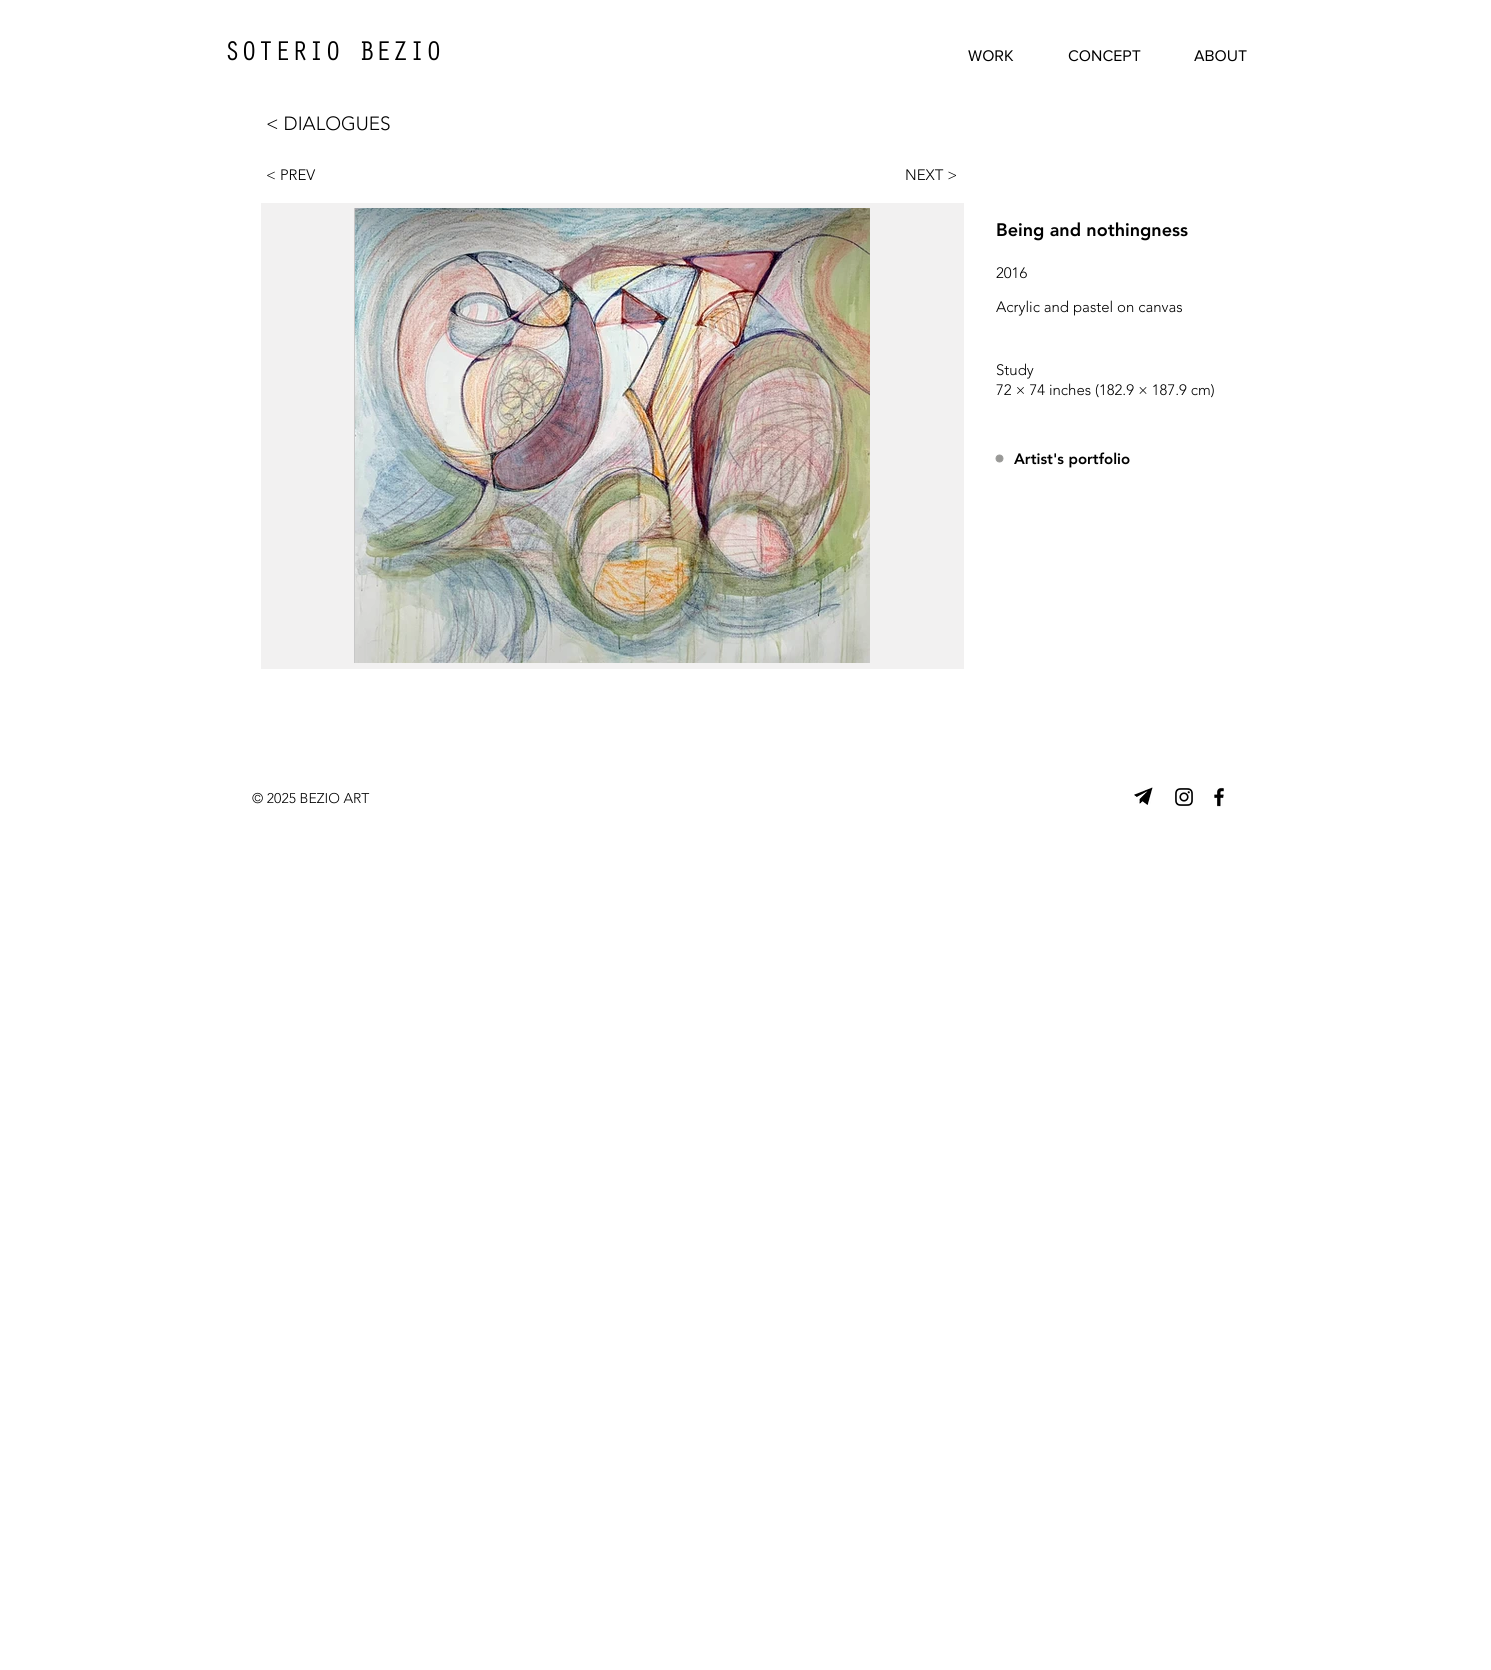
import math
import cairo

surface = cairo.ImageSurface(cairo.FORMAT_RGB24, 1491, 1670)
ctx = cairo.Context(surface)
options = cairo.FontOptions()
options.set_hint_metrics(cairo.HINT_METRICS_OFF)
options.set_hint_style(cairo.HINT_STYLE_NONE)
ctx.set_font_options(options)
ctx.set_miter_limit(4)


def picture(path, x, y, w, h):
    ctx.save()
    ctx.set_source_surface(cairo.ImageSurface.create_from_png(path), x, y)
    ctx.rectangle(x, y, w, h)
    ctx.fill()
    ctx.restore()


ctx.set_source_rgb(1, 1, 1)
ctx.paint()
ctx.select_font_face("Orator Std")
ctx.set_font_size(28)
ctx.set_source_rgb(0, 0, 0)
ctx.move_to(224, 60)
ctx.show_text("SOTERIO BEZIO")
ctx.select_font_face("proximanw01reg")
ctx.set_font_size(16)
ctx.move_to(968, 61)
ctx.show_text("WORK")
ctx.move_to(1068, 61)
ctx.show_text("CONCEPT")
ctx.move_to(1194, 61)
ctx.show_text("ABOUT")
ctx.select_font_face("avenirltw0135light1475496 Light")
ctx.set_font_size(19)
ctx.move_to(266, 130)
ctx.show_text("< DIALOGUES")
ctx.set_font_size(15)
ctx.move_to(266, 180)
ctx.show_text("< PREV")
ctx.move_to(905, 180)
ctx.show_text("NEXT >")
ctx.set_source_rgb(0.949, 0.945, 0.945)
ctx.rectangle(261, 203, 703, 466)
ctx.fill()
ctx.set_source_rgb(0.78, 0.78, 0.78)
ctx.rectangle(354, 208, 1, 455)
ctx.fill()
picture("img1.png", 355, 208, 515, 455)
ctx.select_font_face("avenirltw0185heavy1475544 Black")
ctx.set_font_size(18)
ctx.set_source_rgb(0, 0, 0)
ctx.move_to(996, 236)
ctx.show_text("Being and nothingness")
ctx.select_font_face("avenirltw0135light1475496 Light")
ctx.set_font_size(15)
ctx.move_to(996, 278)
ctx.show_text("2016")
ctx.move_to(996, 312)
ctx.show_text("Acrylic and pastel on canvas")
ctx.move_to(996, 375)
ctx.show_text("Study")
ctx.move_to(996, 395)
ctx.show_text("72 × 74 inches (182.9 × 187.9 cm)")
picture("img2.png", 995, 454, 9, 9)
ctx.select_font_face("avenirltw0185heavy1475544 Black")
ctx.move_to(1014, 464)
ctx.show_text("Artist's portfolio")
ctx.select_font_face("avenirltw0135light1475496 Light")
ctx.set_font_size(14)
ctx.move_to(252, 803)
ctx.show_text("© 2025 BEZIO ART")
picture("img3.png", 1134, 787, 19, 18)
picture("img4.png", 1175, 788, 18, 18)
picture("img5.png", 1214, 787, 10, 20)
surface.write_to_png("page.png")
